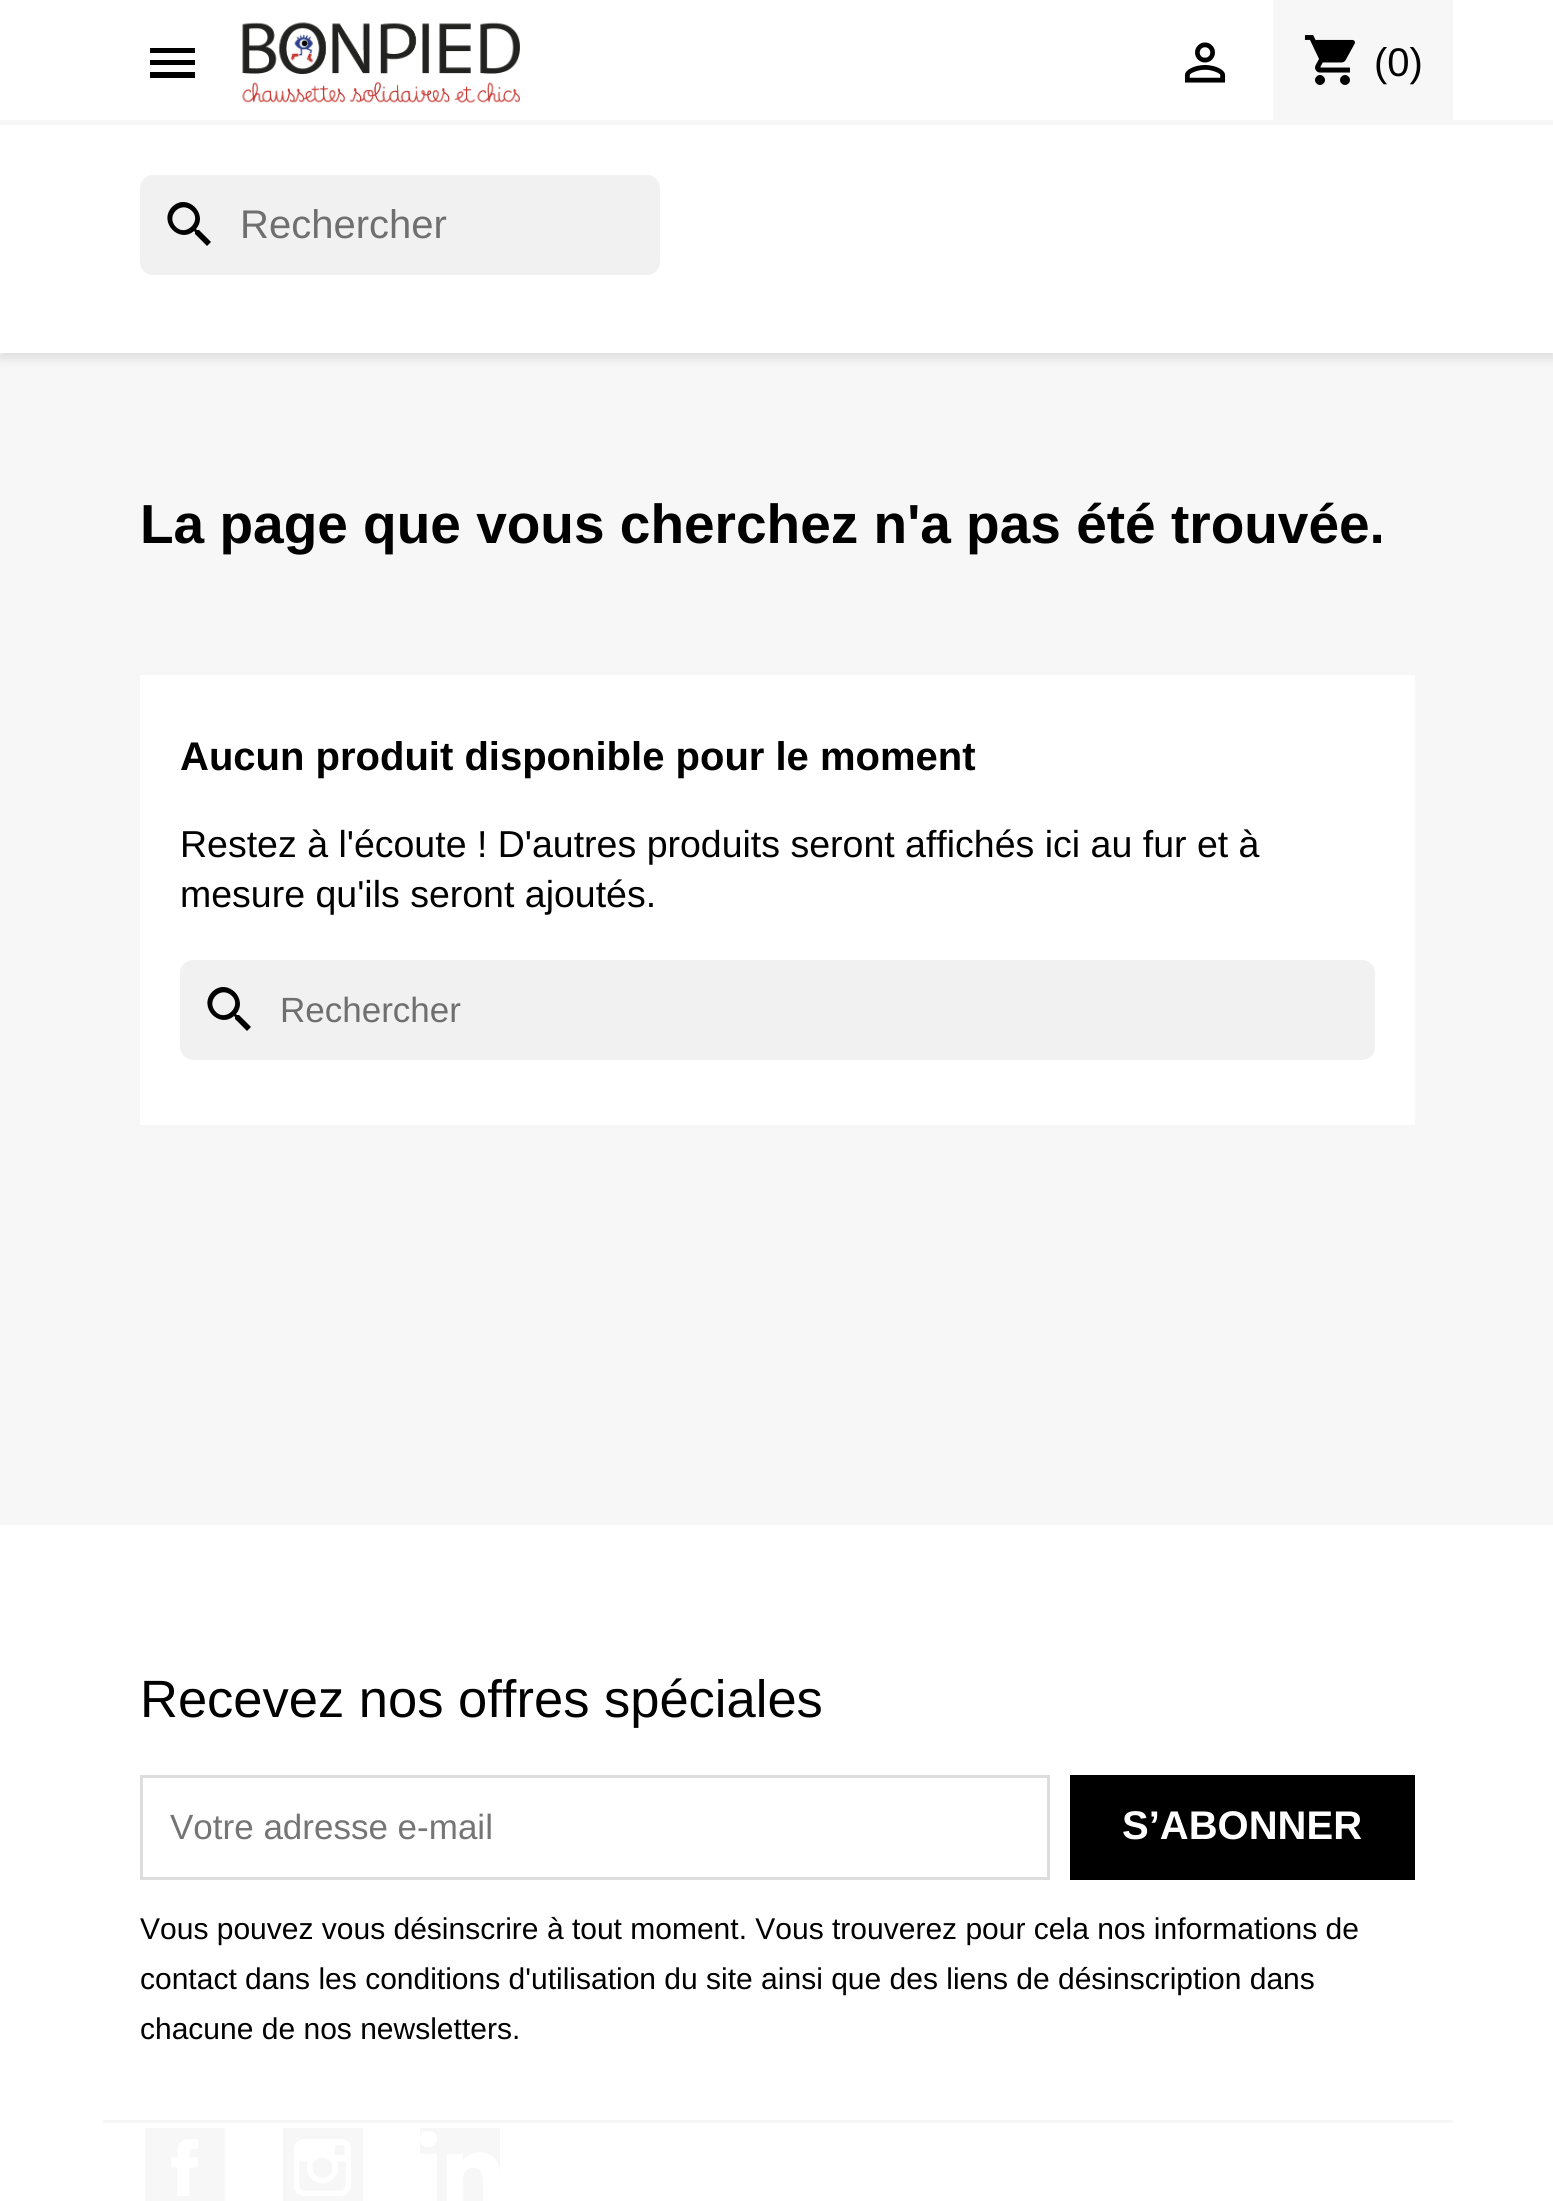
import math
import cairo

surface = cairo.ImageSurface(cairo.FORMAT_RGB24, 1553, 2201)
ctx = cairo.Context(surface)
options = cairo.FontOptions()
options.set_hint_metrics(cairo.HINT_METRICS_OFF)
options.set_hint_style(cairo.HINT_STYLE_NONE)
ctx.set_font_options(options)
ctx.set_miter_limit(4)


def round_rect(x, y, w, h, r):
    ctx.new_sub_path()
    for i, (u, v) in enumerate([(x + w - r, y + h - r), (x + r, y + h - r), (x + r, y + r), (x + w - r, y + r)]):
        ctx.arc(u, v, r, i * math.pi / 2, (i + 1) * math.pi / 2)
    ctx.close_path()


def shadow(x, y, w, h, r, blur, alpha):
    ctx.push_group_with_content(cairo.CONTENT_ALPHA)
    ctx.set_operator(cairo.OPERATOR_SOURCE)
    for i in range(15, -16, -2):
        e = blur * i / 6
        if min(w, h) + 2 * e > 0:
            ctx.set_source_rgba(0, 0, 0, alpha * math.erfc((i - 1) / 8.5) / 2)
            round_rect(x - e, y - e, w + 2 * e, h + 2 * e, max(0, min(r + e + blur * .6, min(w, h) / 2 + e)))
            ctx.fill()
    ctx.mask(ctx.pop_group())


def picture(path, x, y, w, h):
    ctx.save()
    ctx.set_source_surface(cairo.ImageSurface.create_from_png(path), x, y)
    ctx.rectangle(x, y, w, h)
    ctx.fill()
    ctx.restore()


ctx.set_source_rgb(1, 1, 1)
ctx.paint()
ctx.set_source_rgb(0.965, 0.965, 0.965)
ctx.rectangle(0, 353, 1553, 1172)
ctx.fill()
ctx.set_source_rgb(0, 0, 0)
shadow(0, 5, 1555, 353, 0, 6, 0.11)
ctx.set_source_rgb(1, 1, 1)
ctx.rectangle(0, 0, 1553, 353)
ctx.fill()
ctx.set_source_rgb(0.965, 0.965, 0.965)
ctx.rectangle(0, 120, 1553, 5)
ctx.fill()
ctx.set_source_rgb(0, 0, 0)
ctx.new_path()
ctx.move_to(150, 48)
ctx.line_to(195, 48)
ctx.line_to(195, 53)
ctx.line_to(150, 53)
ctx.close_path()
ctx.move_to(150, 65)
ctx.line_to(150, 60)
ctx.line_to(195, 60)
ctx.line_to(195, 65)
ctx.close_path()
ctx.move_to(150, 78)
ctx.line_to(150, 72)
ctx.line_to(195, 72)
ctx.line_to(195, 78)
ctx.close_path()
ctx.fill()
picture("img1.png", 242, 22, 278, 81)
picture("img2.png", 1184, 42, 42, 41)
ctx.set_source_rgb(0.965, 0.965, 0.965)
ctx.rectangle(1273, 0, 180, 120)
ctx.fill()
picture("img3.png", 1304, 35, 51, 50)
ctx.select_font_face("Liberation Sans")
ctx.set_font_size(40)
ctx.set_source_rgb(0, 0, 0)
ctx.move_to(1374, 76)
ctx.show_text("(0)")
ctx.set_source_rgb(0.945, 0.945, 0.945)
round_rect(140, 175, 520, 100, 13)
ctx.fill()
ctx.set_source_rgb(0, 0, 0)
ctx.new_path()
ctx.move_to(176, 227)
ctx.curve_to(186, 237, 202, 221, 192, 211)
ctx.curve_to(181, 200, 165, 216, 176, 227)
ctx.close_path()
ctx.move_to(199, 230)
ctx.line_to(211, 242)
ctx.line_to(207, 246)
ctx.line_to(195, 234)
ctx.line_to(195, 232)
ctx.line_to(194, 231)
ctx.curve_to(179, 244, 158, 222, 172, 207)
ctx.curve_to(187, 192, 209, 214, 196, 229)
ctx.line_to(197, 230)
ctx.close_path()
ctx.fill()
ctx.set_source_rgb(0.435, 0.435, 0.435)
ctx.move_to(240, 238)
ctx.show_text("Rechercher")
ctx.select_font_face("Liberation Sans", cairo.FONT_SLANT_NORMAL, cairo.FONT_WEIGHT_BOLD)
ctx.set_font_size(55)
ctx.set_source_rgb(0, 0, 0)
ctx.move_to(140, 543)
ctx.show_text("La page que vous cherchez n'a pas été trouvée.")
ctx.set_source_rgb(1, 1, 1)
ctx.rectangle(140, 675, 1275, 450)
ctx.fill()
ctx.set_font_size(40)
ctx.set_source_rgb(0, 0, 0)
ctx.move_to(180, 770)
ctx.show_text("Aucun produit disponible pour le moment")
ctx.select_font_face("Liberation Sans")
ctx.set_font_size(37.5)
ctx.move_to(180, 857)
ctx.show_text("Restez à l'écoute ! D'autres produits seront affichés ici au fur et à")
ctx.move_to(180, 907)
ctx.show_text("mesure qu'ils seront ajoutés.")
ctx.set_source_rgb(0.945, 0.945, 0.945)
round_rect(180, 960, 1195, 100, 13)
ctx.fill()
ctx.set_source_rgb(0, 0, 0)
ctx.new_path()
ctx.move_to(216, 1012)
ctx.curve_to(226, 1022, 242, 1006, 232, 996)
ctx.curve_to(221, 985, 205, 1001, 216, 1012)
ctx.close_path()
ctx.move_to(239, 1015)
ctx.line_to(251, 1027)
ctx.line_to(247, 1031)
ctx.line_to(235, 1019)
ctx.line_to(235, 1017)
ctx.line_to(234, 1016)
ctx.curve_to(219, 1029, 198, 1007, 212, 992)
ctx.curve_to(227, 977, 249, 999, 236, 1014)
ctx.line_to(237, 1015)
ctx.close_path()
ctx.fill()
ctx.set_font_size(35)
ctx.set_source_rgb(0.435, 0.435, 0.435)
ctx.move_to(280, 1022)
ctx.show_text("Rechercher")
ctx.set_source_rgb(0.965, 0.965, 0.965)
ctx.rectangle(103, 2120, 1350, 3)
ctx.fill()
ctx.set_font_size(52.5)
ctx.set_source_rgb(0, 0, 0)
ctx.move_to(140, 1717)
ctx.show_text("Recevez nos offres spéciales")
ctx.rectangle(141.5, 1776.5, 907, 102)
ctx.set_source_rgb(0.867, 0.867, 0.867)
ctx.set_line_width(3)
ctx.stroke()
ctx.set_font_size(35)
ctx.set_source_rgb(0.459, 0.459, 0.459)
ctx.move_to(170, 1839)
ctx.show_text("Votre adresse e-mail")
ctx.set_source_rgb(0, 0, 0)
ctx.rectangle(1070, 1775, 345, 105)
ctx.fill()
ctx.select_font_face("Liberation Sans", cairo.FONT_SLANT_NORMAL, cairo.FONT_WEIGHT_BOLD)
ctx.set_font_size(40)
ctx.set_source_rgb(1, 1, 1)
ctx.move_to(1122, 1839)
ctx.show_text("S’ABONNER")
ctx.select_font_face("Liberation Sans")
ctx.set_font_size(30)
ctx.set_source_rgb(0, 0, 0)
ctx.move_to(140, 1939)
ctx.show_text("Vous pouvez vous désinscrire à tout moment. Vous trouverez pour cela nos informations de")
ctx.move_to(140, 1989)
ctx.show_text("contact dans les conditions d'utilisation du site ainsi que des liens de désinscription dans")
ctx.move_to(140, 2039)
ctx.show_text("chacune de nos newsletters.")
ctx.set_source_rgb(0.965, 0.965, 0.965)
ctx.rectangle(145, 2128, 80, 73)
ctx.fill()
picture("img4.png", 171, 2139, 27, 57)
ctx.rectangle(283, 2128, 80, 73)
ctx.fill()
picture("img5.png", 294, 2139, 57, 57)
ctx.rectangle(420, 2128, 80, 73)
ctx.fill()
ctx.set_source_rgb(1, 1, 1)
ctx.new_path()
ctx.move_to(437, 2139)
ctx.curve_to(437, 2150, 420, 2150, 420, 2139)
ctx.curve_to(420, 2128, 437, 2128, 437, 2139)
ctx.close_path()
ctx.move_to(437, 2154)
ctx.line_to(420, 2154)
ctx.line_to(420, 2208)
ctx.line_to(437, 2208)
ctx.close_path()
ctx.move_to(463, 2154)
ctx.line_to(447, 2154)
ctx.line_to(447, 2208)
ctx.line_to(463, 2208)
ctx.line_to(463, 2180)
ctx.curve_to(463, 2164, 483, 2163, 483, 2180)
ctx.line_to(483, 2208)
ctx.line_to(500, 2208)
ctx.line_to(500, 2174)
ctx.curve_to(500, 2147, 470, 2148, 463, 2161)
ctx.close_path()
ctx.fill()
surface.write_to_png("page.png")
